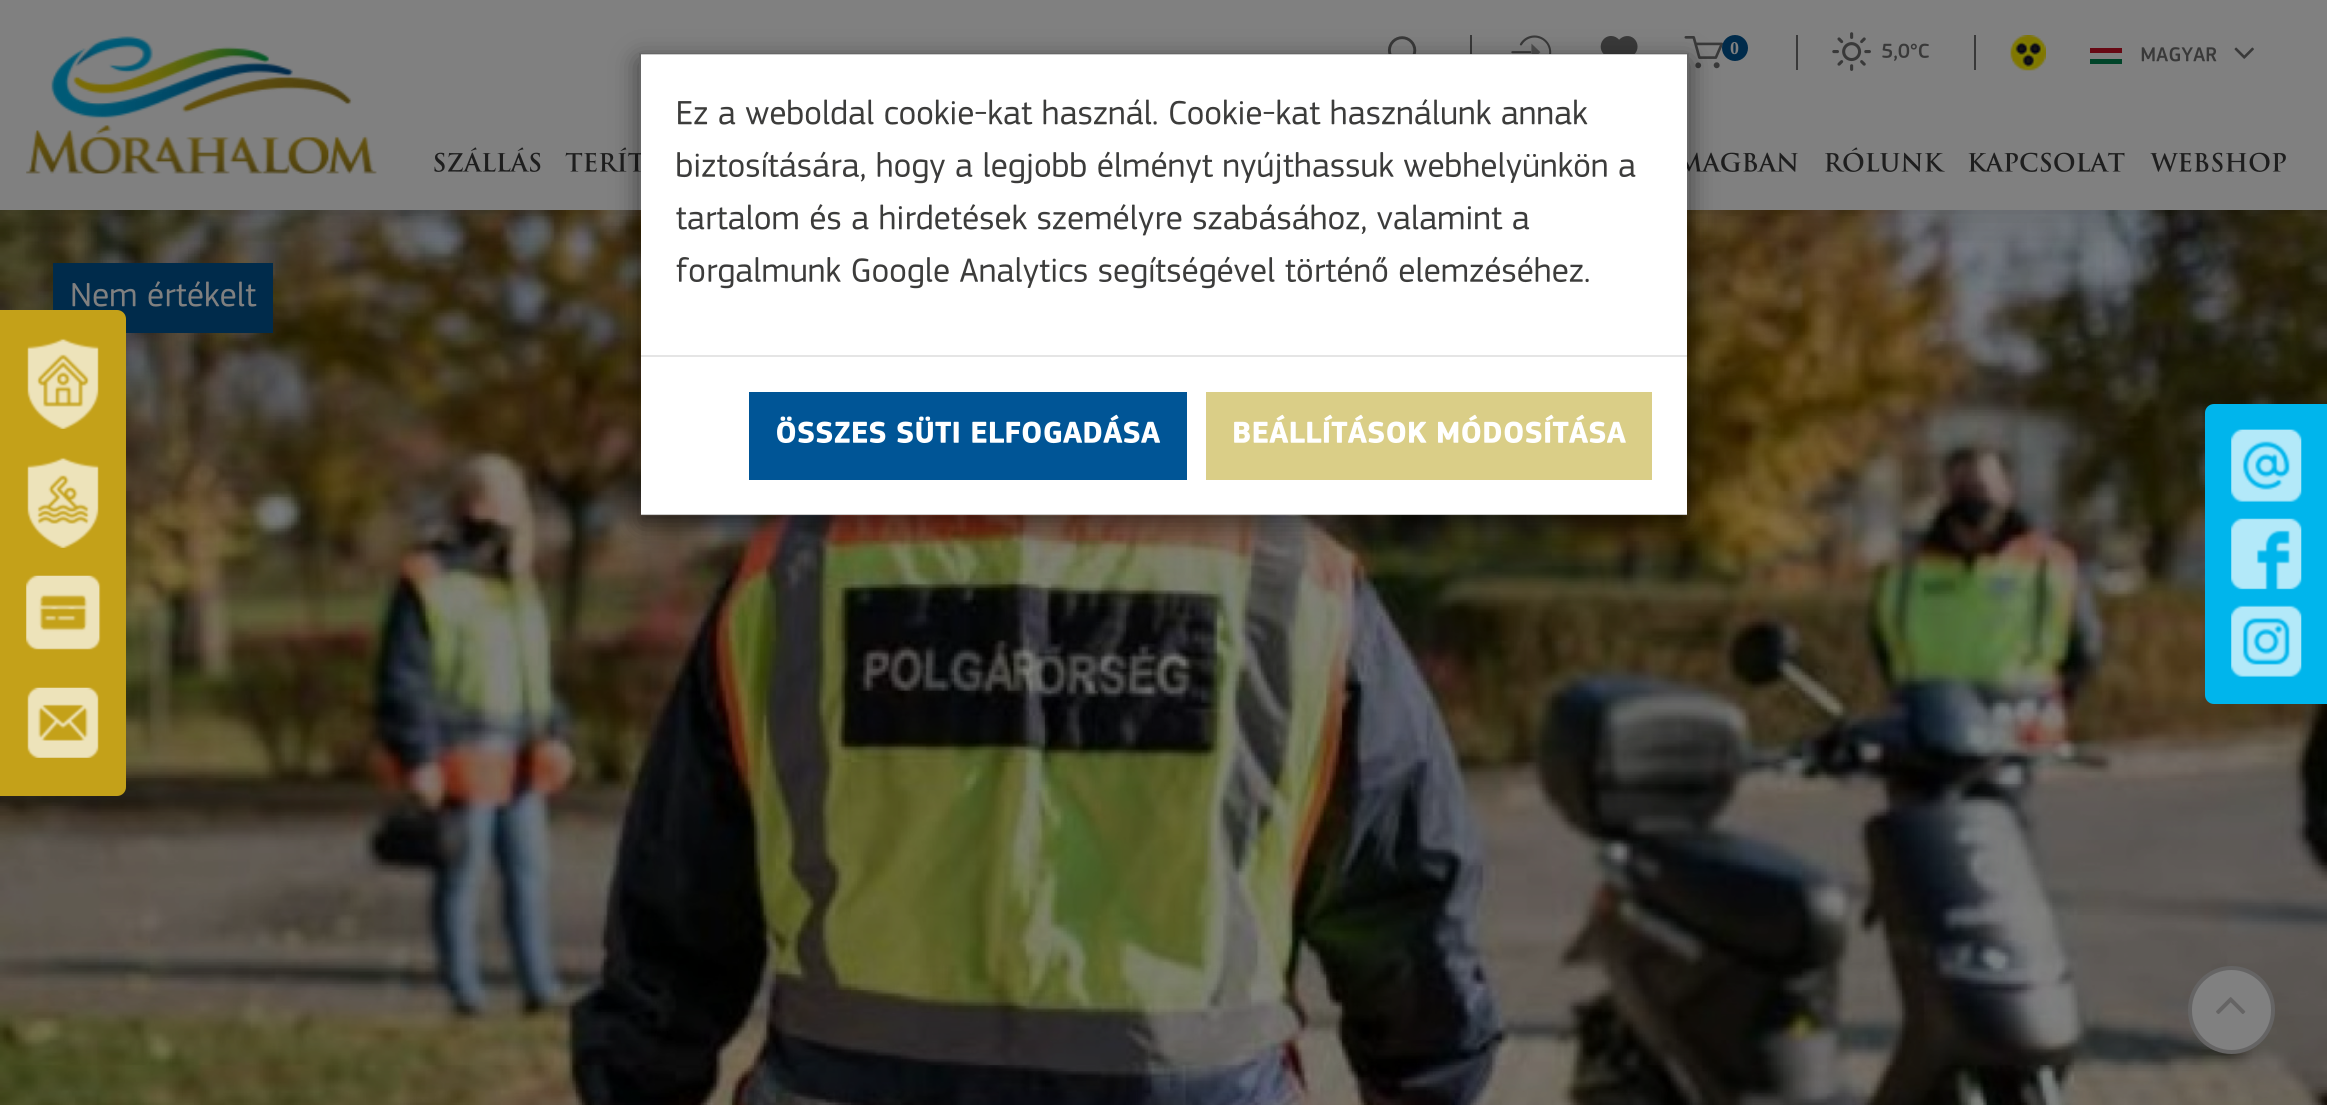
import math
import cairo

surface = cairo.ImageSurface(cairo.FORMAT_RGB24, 2327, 1105)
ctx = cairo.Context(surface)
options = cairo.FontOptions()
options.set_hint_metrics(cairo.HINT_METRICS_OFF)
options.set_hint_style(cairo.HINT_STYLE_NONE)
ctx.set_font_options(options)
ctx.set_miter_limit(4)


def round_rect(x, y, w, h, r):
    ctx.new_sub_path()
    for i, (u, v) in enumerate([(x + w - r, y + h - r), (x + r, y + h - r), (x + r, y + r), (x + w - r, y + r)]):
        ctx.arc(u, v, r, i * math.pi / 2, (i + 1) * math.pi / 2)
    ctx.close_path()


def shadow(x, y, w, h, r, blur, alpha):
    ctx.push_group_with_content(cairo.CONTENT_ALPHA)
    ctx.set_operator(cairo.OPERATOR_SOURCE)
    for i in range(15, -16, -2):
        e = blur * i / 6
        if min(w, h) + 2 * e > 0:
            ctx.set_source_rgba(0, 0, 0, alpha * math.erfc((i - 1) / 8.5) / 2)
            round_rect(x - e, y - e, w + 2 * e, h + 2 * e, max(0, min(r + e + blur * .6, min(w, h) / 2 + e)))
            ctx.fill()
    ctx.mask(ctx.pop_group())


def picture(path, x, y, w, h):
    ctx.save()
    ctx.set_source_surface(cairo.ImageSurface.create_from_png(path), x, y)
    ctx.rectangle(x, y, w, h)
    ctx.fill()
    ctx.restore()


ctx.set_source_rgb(0.502, 0.502, 0.502)
ctx.paint()
picture("img30.png", 0, 210, 2327, 895)
ctx.set_source_rgb(0, 0.169, 0.294)
ctx.rectangle(53, 263, 220, 70)
ctx.fill()
picture("img31.png", 72, 281, 185, 26)
ctx.save()
ctx.rectangle(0, 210, 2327, 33)
ctx.clip()
ctx.set_source_rgb(0, 0, 0)
shadow(0, 0, 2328, 210, 0, 26, 0.2)
ctx.restore()
picture("img8.png", 1387, 36, 30, 18)
ctx.set_source_rgb(0.224, 0.224, 0.224)
ctx.rectangle(1470, 35, 2, 19)
ctx.fill()
picture("img9.png", 1511, 35, 41, 19)
picture("img10.png", 1600, 36, 38, 18)
picture("img11.png", 1684, 36, 39, 33)
ctx.set_source_rgb(0, 0.169, 0.294)
ctx.arc(1735, 48, 13, 0, 2 * math.pi)
ctx.fill()
picture("img18.png", 565, 147, 76, 25)
picture("img19.png", 1687, 152, 111, 20)
ctx.save()
ctx.set_fill_rule(cairo.FILL_RULE_EVEN_ODD)
ctx.new_path()
ctx.move_to(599, 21)
ctx.line_to(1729, 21)
ctx.line_to(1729, 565)
ctx.line_to(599, 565)
ctx.close_path()
ctx.move_to(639, 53)
ctx.line_to(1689, 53)
ctx.line_to(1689, 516)
ctx.line_to(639, 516)
ctx.close_path()
ctx.clip()
ctx.set_source_rgb(0, 0, 0)
shadow(639, 61, 1050, 464, 0, 13, 0.5)
ctx.restore()
ctx.set_source_rgb(1, 1, 1)
ctx.rectangle(641, 54, 1046, 461)
ctx.fill()
ctx.rectangle(640, 54, 1048, 461)
ctx.set_source_rgba(0, 0, 0, 0.2)
ctx.stroke()
picture("img1.png", 678, 99, 910, 26)
picture("img2.png", 677, 151, 959, 33)
picture("img3.png", 676, 204, 854, 32)
picture("img4.png", 676, 256, 913, 33)
ctx.set_source_rgb(0.898, 0.898, 0.898)
ctx.rectangle(641, 355, 1046, 2)
ctx.fill()
ctx.set_source_rgb(0, 0.333, 0.588)
ctx.rectangle(749, 392, 438, 88)
ctx.fill()
picture("img5.png", 777, 414, 384, 30)
ctx.set_source_rgb(0.855, 0.808, 0.529)
ctx.rectangle(1206, 392, 446, 88)
ctx.fill()
picture("img6.png", 1234, 414, 392, 29)
picture("img7.png", 26, 36, 351, 138)
ctx.select_font_face("Liberation Serif", cairo.FONT_SLANT_NORMAL, cairo.FONT_WEIGHT_BOLD)
ctx.set_font_size(18)
ctx.set_source_rgb(0.502, 0.502, 0.502)
ctx.move_to(1730, 54)
ctx.show_text("0")
ctx.set_source_rgb(0.224, 0.224, 0.224)
ctx.rectangle(1796, 35, 2, 35)
ctx.fill()
picture("img12.png", 1832, 32, 39, 39)
picture("img13.png", 1882, 43, 47, 18)
ctx.rectangle(1974, 35, 2, 35)
ctx.fill()
picture("img14.png", 2010, 35, 36, 36)
ctx.set_source_rgb(0.404, 0.035, 0.075)
ctx.rectangle(2090, 48, 32, 5)
ctx.fill()
picture("img15.png", 2141, 47, 76, 15)
picture("img16.png", 2234, 47, 20, 12)
ctx.set_source_rgb(0, 0.267, 0.161)
ctx.rectangle(2090, 59, 32, 5)
ctx.fill()
picture("img17.png", 434, 147, 107, 25)
picture("img20.png", 1825, 147, 120, 25)
picture("img21.png", 1968, 152, 157, 20)
picture("img22.png", 2150, 152, 136, 20)
ctx.set_source_rgb(0.769, 0.631, 0.098)
ctx.new_path()
ctx.move_to(0, 310)
ctx.line_to(117, 310)
ctx.curve_to(122, 310, 126, 314, 126, 319)
ctx.line_to(126, 787)
ctx.curve_to(126, 792, 122, 796, 117, 796)
ctx.line_to(0, 796)
ctx.close_path()
ctx.fill()
picture("img23.png", 27, 338, 72, 91)
picture("img24.png", 27, 457, 72, 91)
picture("img25.png", 26, 575, 75, 75)
picture("img26.png", 27, 687, 72, 71)
ctx.set_source_rgb(0, 0.71, 0.925)
ctx.new_path()
ctx.move_to(2214, 404)
ctx.line_to(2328, 404)
ctx.line_to(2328, 704)
ctx.line_to(2214, 704)
ctx.curve_to(2209, 704, 2205, 700, 2205, 695)
ctx.line_to(2205, 413)
ctx.curve_to(2205, 408, 2209, 404, 2214, 404)
ctx.close_path()
ctx.fill()
picture("img27.png", 2231, 429, 71, 73)
picture("img28.png", 2231, 518, 71, 72)
picture("img29.png", 2231, 605, 71, 72)
ctx.set_source_rgb(0.502, 0.502, 0.502)
round_rect(2190, 968, 83, 84, 41.5)
ctx.fill_preserve()
ctx.set_source_rgb(0.396, 0.392, 0.392)
ctx.set_line_width(4)
ctx.stroke()
picture("img32.png", 2216, 997, 30, 17)
surface.write_to_png("page.png")
